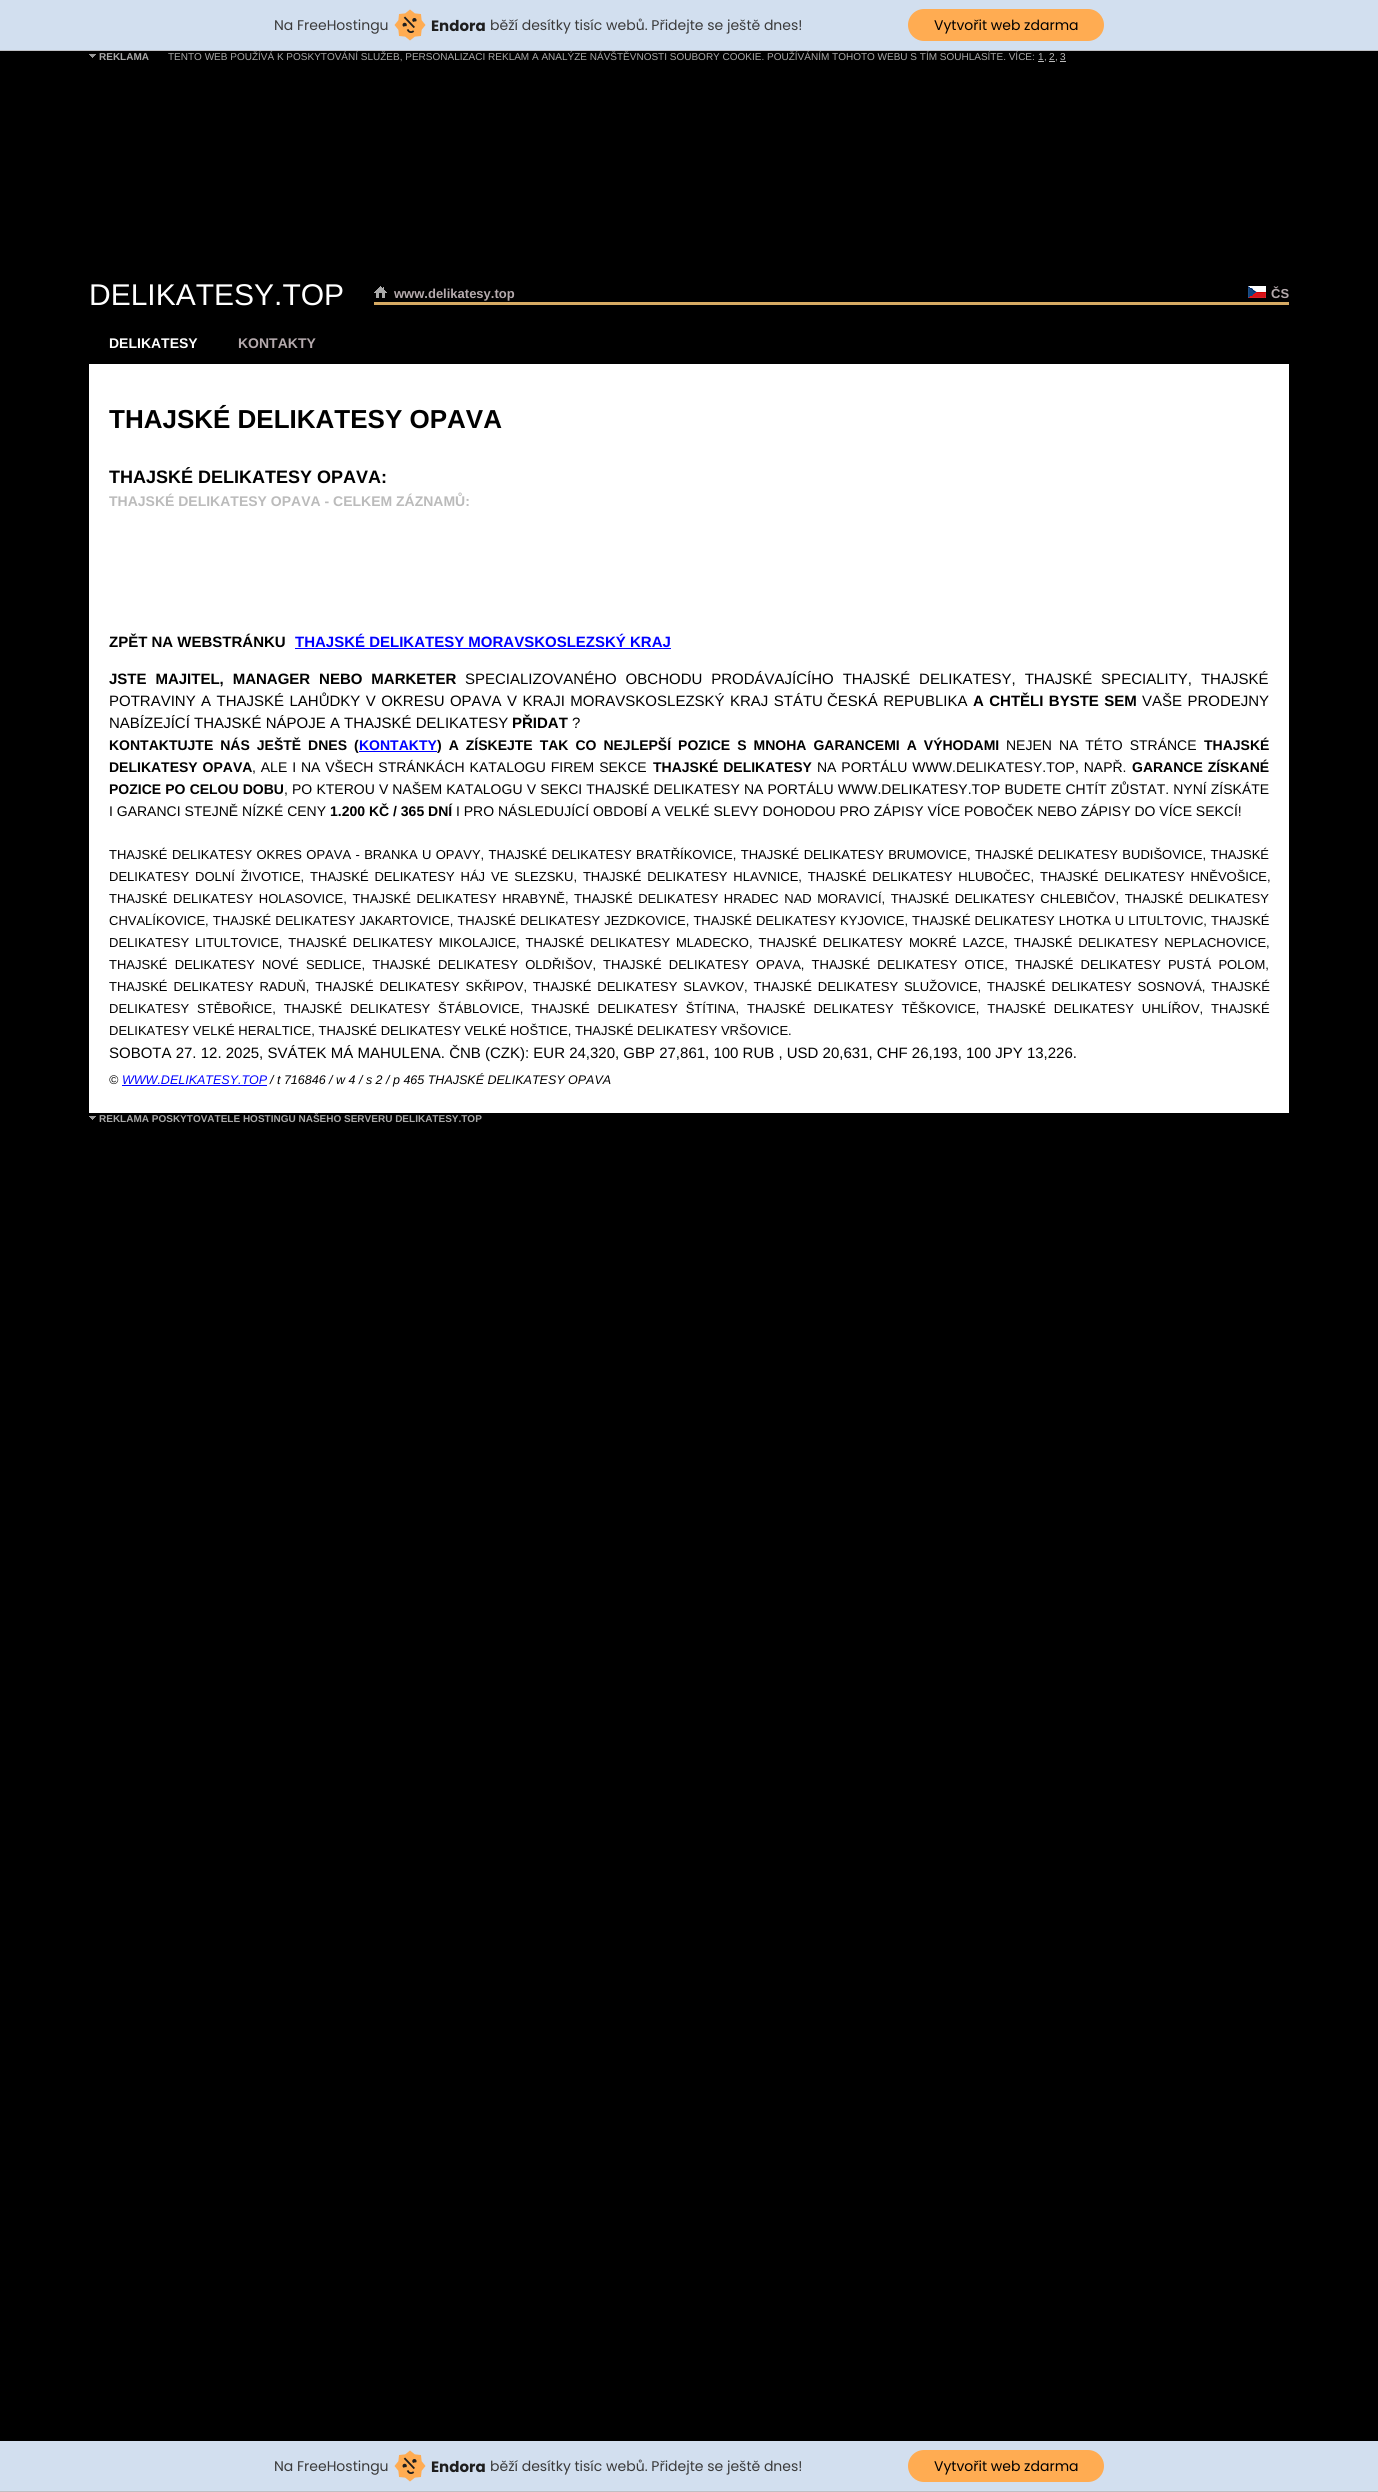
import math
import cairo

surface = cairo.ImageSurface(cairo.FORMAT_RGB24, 1378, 2492)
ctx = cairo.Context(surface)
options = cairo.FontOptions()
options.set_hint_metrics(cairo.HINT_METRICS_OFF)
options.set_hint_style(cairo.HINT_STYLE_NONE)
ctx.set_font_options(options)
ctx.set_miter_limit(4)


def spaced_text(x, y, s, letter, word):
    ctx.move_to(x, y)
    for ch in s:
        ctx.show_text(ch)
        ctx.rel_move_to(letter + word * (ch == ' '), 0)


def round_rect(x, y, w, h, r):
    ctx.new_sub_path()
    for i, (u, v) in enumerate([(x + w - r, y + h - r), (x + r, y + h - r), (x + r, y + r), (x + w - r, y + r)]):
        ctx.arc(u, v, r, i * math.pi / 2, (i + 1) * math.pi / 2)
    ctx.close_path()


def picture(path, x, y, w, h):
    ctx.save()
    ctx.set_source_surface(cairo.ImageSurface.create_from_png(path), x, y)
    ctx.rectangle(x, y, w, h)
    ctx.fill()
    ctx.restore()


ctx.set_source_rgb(0, 0, 0)
ctx.paint()
ctx.set_source_rgb(0.824, 0.875, 0.937)
ctx.rectangle(0, 0, 1378, 50)
ctx.fill()
ctx.set_source_rgb(0.745, 0.749, 0.769)
ctx.rectangle(0, 50, 1378, 1)
ctx.fill()
ctx.select_font_face("Poppins")
ctx.set_font_size(14)
ctx.set_source_rgb(0.227, 0.227, 0.227)
ctx.move_to(274, 30)
ctx.show_text("Na FreeHostingu")
picture("img1.png", 394, 9, 32, 32)
ctx.select_font_face("Poppins", cairo.FONT_SLANT_NORMAL, cairo.FONT_WEIGHT_BOLD)
ctx.set_font_size(15)
ctx.set_source_rgb(0.118, 0.118, 0.118)
ctx.move_to(431, 31)
ctx.show_text("Endora")
ctx.select_font_face("Poppins")
ctx.set_font_size(14)
ctx.set_source_rgb(0.227, 0.227, 0.227)
ctx.move_to(490, 30)
ctx.show_text("běží desítky tisíc webů. Přidejte se ještě dnes!")
ctx.set_source_rgb(1, 0.675, 0.322)
round_rect(908, 9, 196, 32, 16)
ctx.fill()
ctx.set_source_rgb(0, 0, 0)
ctx.move_to(934, 30)
ctx.show_text("Vytvořit web zdarma")
picture("img2.png", 89, 54, 7, 4)
ctx.select_font_face("Liberation Sans", cairo.FONT_SLANT_NORMAL, cairo.FONT_WEIGHT_BOLD)
ctx.set_font_size(10)
ctx.set_source_rgb(0.667, 0.667, 0.667)
ctx.move_to(99, 60)
ctx.show_text("REKLAMA")
ctx.select_font_face("Liberation Sans")
ctx.move_to(168, 60)
ctx.show_text("TENTO WEB POUŽÍVÁ K POSKYTOVÁNÍ SLUŽEB, PERSONALIZACI REKLAM A ANALÝZE NÁVŠTĚVNOSTI SOUBORY COOKIE. POUŽÍVÁNÍM TOHOTO WEBU S TÍM SOUHLASÍTE. VÍCE:")
ctx.set_source_rgb(0.733, 0.733, 0.733)
ctx.move_to(1038, 60)
ctx.show_text("1")
ctx.rectangle(1038, 61, 6, 1)
ctx.fill()
ctx.set_source_rgb(0.667, 0.667, 0.667)
ctx.move_to(1044, 60)
ctx.show_text(",")
ctx.set_source_rgb(0.733, 0.733, 0.733)
ctx.move_to(1049, 60)
ctx.show_text("2")
ctx.rectangle(1049, 61, 6, 1)
ctx.fill()
ctx.set_source_rgb(0.667, 0.667, 0.667)
ctx.move_to(1055, 60)
ctx.show_text(",")
ctx.set_source_rgb(0.733, 0.733, 0.733)
ctx.move_to(1060, 60)
ctx.show_text("3")
ctx.rectangle(1060, 61, 6, 1)
ctx.fill()
ctx.set_font_size(30)
ctx.set_source_rgb(1, 1, 1)
ctx.move_to(89, 305)
ctx.show_text("DELIKATESY.TOP")
picture("img3.png", 374, 286, 13, 12)
ctx.select_font_face("Liberation Sans", cairo.FONT_SLANT_NORMAL, cairo.FONT_WEIGHT_BOLD)
ctx.set_font_size(13)
ctx.set_source_rgb(0.71, 0.667, 0.678)
ctx.move_to(394, 298)
ctx.show_text("www.delikatesy.top")
picture("img4.png", 1248, 286, 18, 12)
ctx.move_to(1271, 298)
ctx.show_text("ČS")
ctx.set_source_rgb(0.839, 0.667, 0.388)
ctx.rectangle(374, 302, 915, 3)
ctx.fill()
ctx.set_font_size(14)
ctx.set_source_rgb(1, 1, 1)
ctx.move_to(109, 348)
ctx.show_text("DELIKATESY")
ctx.set_source_rgb(0.71, 0.667, 0.678)
ctx.move_to(238, 348)
ctx.show_text("KONTAKTY")
ctx.set_source_rgb(1, 1, 1)
ctx.rectangle(89, 364, 1200, 749)
ctx.fill()
ctx.set_font_size(26)
ctx.set_source_rgb(0, 0, 0)
ctx.move_to(109, 428)
ctx.show_text("THAJSKÉ DELIKATESY OPAVA")
ctx.set_font_size(18)
ctx.move_to(109, 483)
ctx.show_text("THAJSKÉ DELIKATESY OPAVA:")
ctx.set_font_size(14)
ctx.set_source_rgb(0.733, 0.733, 0.733)
ctx.move_to(109, 506)
ctx.show_text("THAJSKÉ DELIKATESY OPAVA - CELKEM ZÁZNAMŮ:")
ctx.set_font_size(15)
ctx.set_source_rgb(0, 0, 0)
ctx.move_to(109, 647)
ctx.show_text("ZPĚT NA WEBSTRÁNKU")
ctx.set_source_rgb(0, 0, 1)
ctx.move_to(295, 647)
ctx.show_text("THAJSKÉ DELIKATESY MORAVSKOSLEZSKÝ KRAJ")
ctx.rectangle(295, 648, 376, 1)
ctx.fill()
ctx.set_source_rgb(0, 0, 0)
spaced_text(109, 684, "JSTE MAJITEL, MANAGER NEBO MARKETER", 0, 4.75)
ctx.select_font_face("Liberation Sans")
spaced_text(465, 684, "SPECIALIZOVANÉHO OBCHODU PRODÁVAJÍCÍHO THAJSKÉ DELIKATESY, THAJSKÉ SPECIALITY, THAJSKÉ", 0, 4.75)
spaced_text(109, 706, "POTRAVINY A THAJSKÉ LAHŮDKY V OKRESU OPAVA V KRAJI MORAVSKOSLEZSKÝ KRAJ STÁTU", 0, 1.25)
spaced_text(827, 706, "ČESKÁ REPUBLIKA", 0, 1.25)
ctx.select_font_face("Liberation Sans", cairo.FONT_SLANT_NORMAL, cairo.FONT_WEIGHT_BOLD)
spaced_text(973, 706, "A CHTĚLI BYSTE SEM", 0, 1.25)
ctx.select_font_face("Liberation Sans")
spaced_text(1142, 706, "VAŠE PRODEJNY", 0, 1.25)
ctx.move_to(109, 728)
ctx.show_text("NABÍZEJÍCÍ THAJSKÉ NÁPOJE A THAJSKÉ DELIKATESY")
ctx.select_font_face("Liberation Sans", cairo.FONT_SLANT_NORMAL, cairo.FONT_WEIGHT_BOLD)
ctx.move_to(512, 728)
ctx.show_text("PŘIDAT")
ctx.select_font_face("Liberation Sans")
ctx.move_to(572, 728)
ctx.show_text("?")
ctx.select_font_face("Liberation Sans", cairo.FONT_SLANT_NORMAL, cairo.FONT_WEIGHT_BOLD)
ctx.set_font_size(14)
spaced_text(109, 750, "KONTAKTUJTE NÁS JEŠTĚ DNES (", 0, 3.1)
ctx.set_source_rgb(0, 0, 1)
ctx.move_to(359, 750)
ctx.show_text("KONTAKTY")
ctx.rectangle(359, 751, 78, 1)
ctx.fill()
ctx.set_source_rgb(0, 0, 0)
spaced_text(437, 750, ") A ZÍSKEJTE TAK CO NEJLEPŠÍ POZICE S MNOHA GARANCEMI A VÝHODAMI", 0, 3.1)
ctx.select_font_face("Liberation Sans")
spaced_text(1006, 750, "NEJEN NA TÉTO STRÁNCE", 0, 3.1)
ctx.select_font_face("Liberation Sans", cairo.FONT_SLANT_NORMAL, cairo.FONT_WEIGHT_BOLD)
ctx.move_to(1204, 750)
ctx.show_text("THAJSKÉ")
spaced_text(109, 772, "DELIKATESY OPAVA", 0, 1)
ctx.select_font_face("Liberation Sans")
spaced_text(252, 772, ", ALE I NA VŠECH STRÁNKÁCH KATALOGU FIREM SEKCE", 0, 1)
ctx.select_font_face("Liberation Sans", cairo.FONT_SLANT_NORMAL, cairo.FONT_WEIGHT_BOLD)
spaced_text(653, 772, "THAJSKÉ DELIKATESY", 0, 1)
ctx.select_font_face("Liberation Sans")
spaced_text(817, 772, "NA PORTÁLU WWW.DELIKATESY.TOP, NAPŘ.", 0, 1)
ctx.select_font_face("Liberation Sans", cairo.FONT_SLANT_NORMAL, cairo.FONT_WEIGHT_BOLD)
spaced_text(1132, 772, "GARANCE ZÍSKANÉ", 0, 1)
spaced_text(109, 794, "POZICE PO CELOU DOBU", 0, 0.25)
ctx.select_font_face("Liberation Sans")
spaced_text(284, 794, ", PO KTEROU V NAŠEM KATALOGU V SEKCI THAJSKÉ DELIKATESY NA PORTÁLU WWW.DELIKATESY.TOP BUDETE CHTÍT ZŮSTAT. NYNÍ ZÍSKÁTE", 0, 0.25)
ctx.move_to(109, 816)
ctx.show_text("I GARANCI STEJNĚ NÍZKÉ CENY")
ctx.select_font_face("Liberation Sans", cairo.FONT_SLANT_NORMAL, cairo.FONT_WEIGHT_BOLD)
ctx.move_to(330, 816)
ctx.show_text("1.200 KČ / 365 DNÍ")
ctx.select_font_face("Liberation Sans")
ctx.move_to(456, 816)
ctx.show_text("I PRO NÁSLEDUJÍCÍ OBDOBÍ A VELKÉ SLEVY DOHODOU PRO ZÁPISY VÍCE POBOČEK NEBO ZÁPISY DO VÍCE SEKCÍ!")
ctx.set_font_size(13)
spaced_text(109, 859, "THAJSKÉ DELIKATESY OKRES OPAVA - BRANKA U OPAVY, THAJSKÉ DELIKATESY BRATŘÍKOVICE, THAJSKÉ DELIKATESY BRUMOVICE, THAJSKÉ DELIKATESY BUDIŠOVICE, THAJSKÉ", 0, 0.75)
spaced_text(109, 881, "DELIKATESY DOLNÍ ŽIVOTICE, THAJSKÉ DELIKATESY HÁJ VE SLEZSKU, THAJSKÉ DELIKATESY HLAVNICE, THAJSKÉ DELIKATESY HLUBOČEC, THAJSKÉ DELIKATESY HNĚVOŠICE,", 0, 2.25)
spaced_text(109, 903, "THAJSKÉ DELIKATESY HOLASOVICE, THAJSKÉ DELIKATESY HRABYNĚ, THAJSKÉ DELIKATESY HRADEC NAD MORAVICÍ, THAJSKÉ DELIKATESY CHLEBIČOV, THAJSKÉ DELIKATESY", 0, 1.9)
spaced_text(109, 925, "CHVALÍKOVICE, THAJSKÉ DELIKATESY JAKARTOVICE, THAJSKÉ DELIKATESY JEZDKOVICE, THAJSKÉ DELIKATESY KYJOVICE, THAJSKÉ DELIKATESY LHOTKA U LITULTOVIC, THAJSKÉ", 0, 0.4)
spaced_text(109, 947, "DELIKATESY LITULTOVICE, THAJSKÉ DELIKATESY MIKOLAJICE, THAJSKÉ DELIKATESY MLADECKO, THAJSKÉ DELIKATESY MOKRÉ LAZCE, THAJSKÉ DELIKATESY NEPLACHOVICE,", 0, 2.25)
spaced_text(109, 969, "THAJSKÉ DELIKATESY NOVÉ SEDLICE, THAJSKÉ DELIKATESY OLDŘIŠOV, THAJSKÉ DELIKATESY OPAVA, THAJSKÉ DELIKATESY OTICE, THAJSKÉ DELIKATESY PUSTÁ POLOM,", 0, 3.5)
spaced_text(109, 991, "THAJSKÉ DELIKATESY RADUŇ, THAJSKÉ DELIKATESY SKŘIPOV, THAJSKÉ DELIKATESY SLAVKOV, THAJSKÉ DELIKATESY SLUŽOVICE, THAJSKÉ DELIKATESY SOSNOVÁ, THAJSKÉ", 0, 2.25)
spaced_text(109, 1013, "DELIKATESY STĚBOŘICE, THAJSKÉ DELIKATESY ŠTÁBLOVICE, THAJSKÉ DELIKATESY ŠTÍTINA, THAJSKÉ DELIKATESY TĚŠKOVICE, THAJSKÉ DELIKATESY UHLÍŘOV, THAJSKÉ", 0, 4.25)
ctx.move_to(109, 1035)
ctx.show_text("DELIKATESY VELKÉ HERALTICE, THAJSKÉ DELIKATESY VELKÉ HOŠTICE, THAJSKÉ DELIKATESY VRŠOVICE.")
ctx.set_font_size(15)
ctx.move_to(109, 1058)
ctx.show_text("SOBOTA 27. 12. 2025, SVÁTEK MÁ MAHULENA. ČNB (CZK): EUR 24,320, GBP 27,861, 100 RUB , USD 20,631, CHF 26,193, 100 JPY 13,226.")
ctx.select_font_face("Liberation Sans", cairo.FONT_SLANT_ITALIC)
ctx.set_font_size(12.5)
ctx.move_to(109, 1084)
ctx.show_text("©")
ctx.set_source_rgb(0, 0, 1)
ctx.move_to(122, 1084)
ctx.show_text("WWW.DELIKATESY.TOP")
ctx.rectangle(122, 1085, 145, 1)
ctx.fill()
ctx.set_source_rgb(0, 0, 0)
ctx.move_to(270, 1084)
ctx.show_text("/ t 716846 / w 4 / s 2 / p 465 THAJSKÉ DELIKATESY OPAVA")
picture("img2.png", 89, 1116, 7, 4)
ctx.select_font_face("Liberation Sans", cairo.FONT_SLANT_NORMAL, cairo.FONT_WEIGHT_BOLD)
ctx.set_font_size(10)
ctx.set_source_rgb(0.667, 0.667, 0.667)
ctx.move_to(99, 1122)
ctx.show_text("REKLAMA POSKYTOVATELE HOSTINGU NAŠEHO SERVERU DELIKATESY.TOP")
ctx.set_source_rgb(0.824, 0.875, 0.937)
ctx.rectangle(0, 2441, 1378, 50)
ctx.fill()
ctx.set_source_rgb(0.745, 0.749, 0.769)
ctx.rectangle(0, 2491, 1378, 1)
ctx.fill()
ctx.select_font_face("Poppins")
ctx.set_font_size(14)
ctx.set_source_rgb(0.227, 0.227, 0.227)
ctx.move_to(274, 2471)
ctx.show_text("Na FreeHostingu")
picture("img1.png", 394, 2450, 32, 32)
ctx.select_font_face("Poppins", cairo.FONT_SLANT_NORMAL, cairo.FONT_WEIGHT_BOLD)
ctx.set_font_size(15)
ctx.set_source_rgb(0.118, 0.118, 0.118)
ctx.move_to(431, 2472)
ctx.show_text("Endora")
ctx.select_font_face("Poppins")
ctx.set_font_size(14)
ctx.set_source_rgb(0.227, 0.227, 0.227)
ctx.move_to(490, 2471)
ctx.show_text("běží desítky tisíc webů. Přidejte se ještě dnes!")
ctx.set_source_rgb(1, 0.675, 0.322)
round_rect(908, 2450, 196, 32, 16)
ctx.fill()
ctx.set_source_rgb(0, 0, 0)
ctx.move_to(934, 2471)
ctx.show_text("Vytvořit web zdarma")
surface.write_to_png("page.png")
